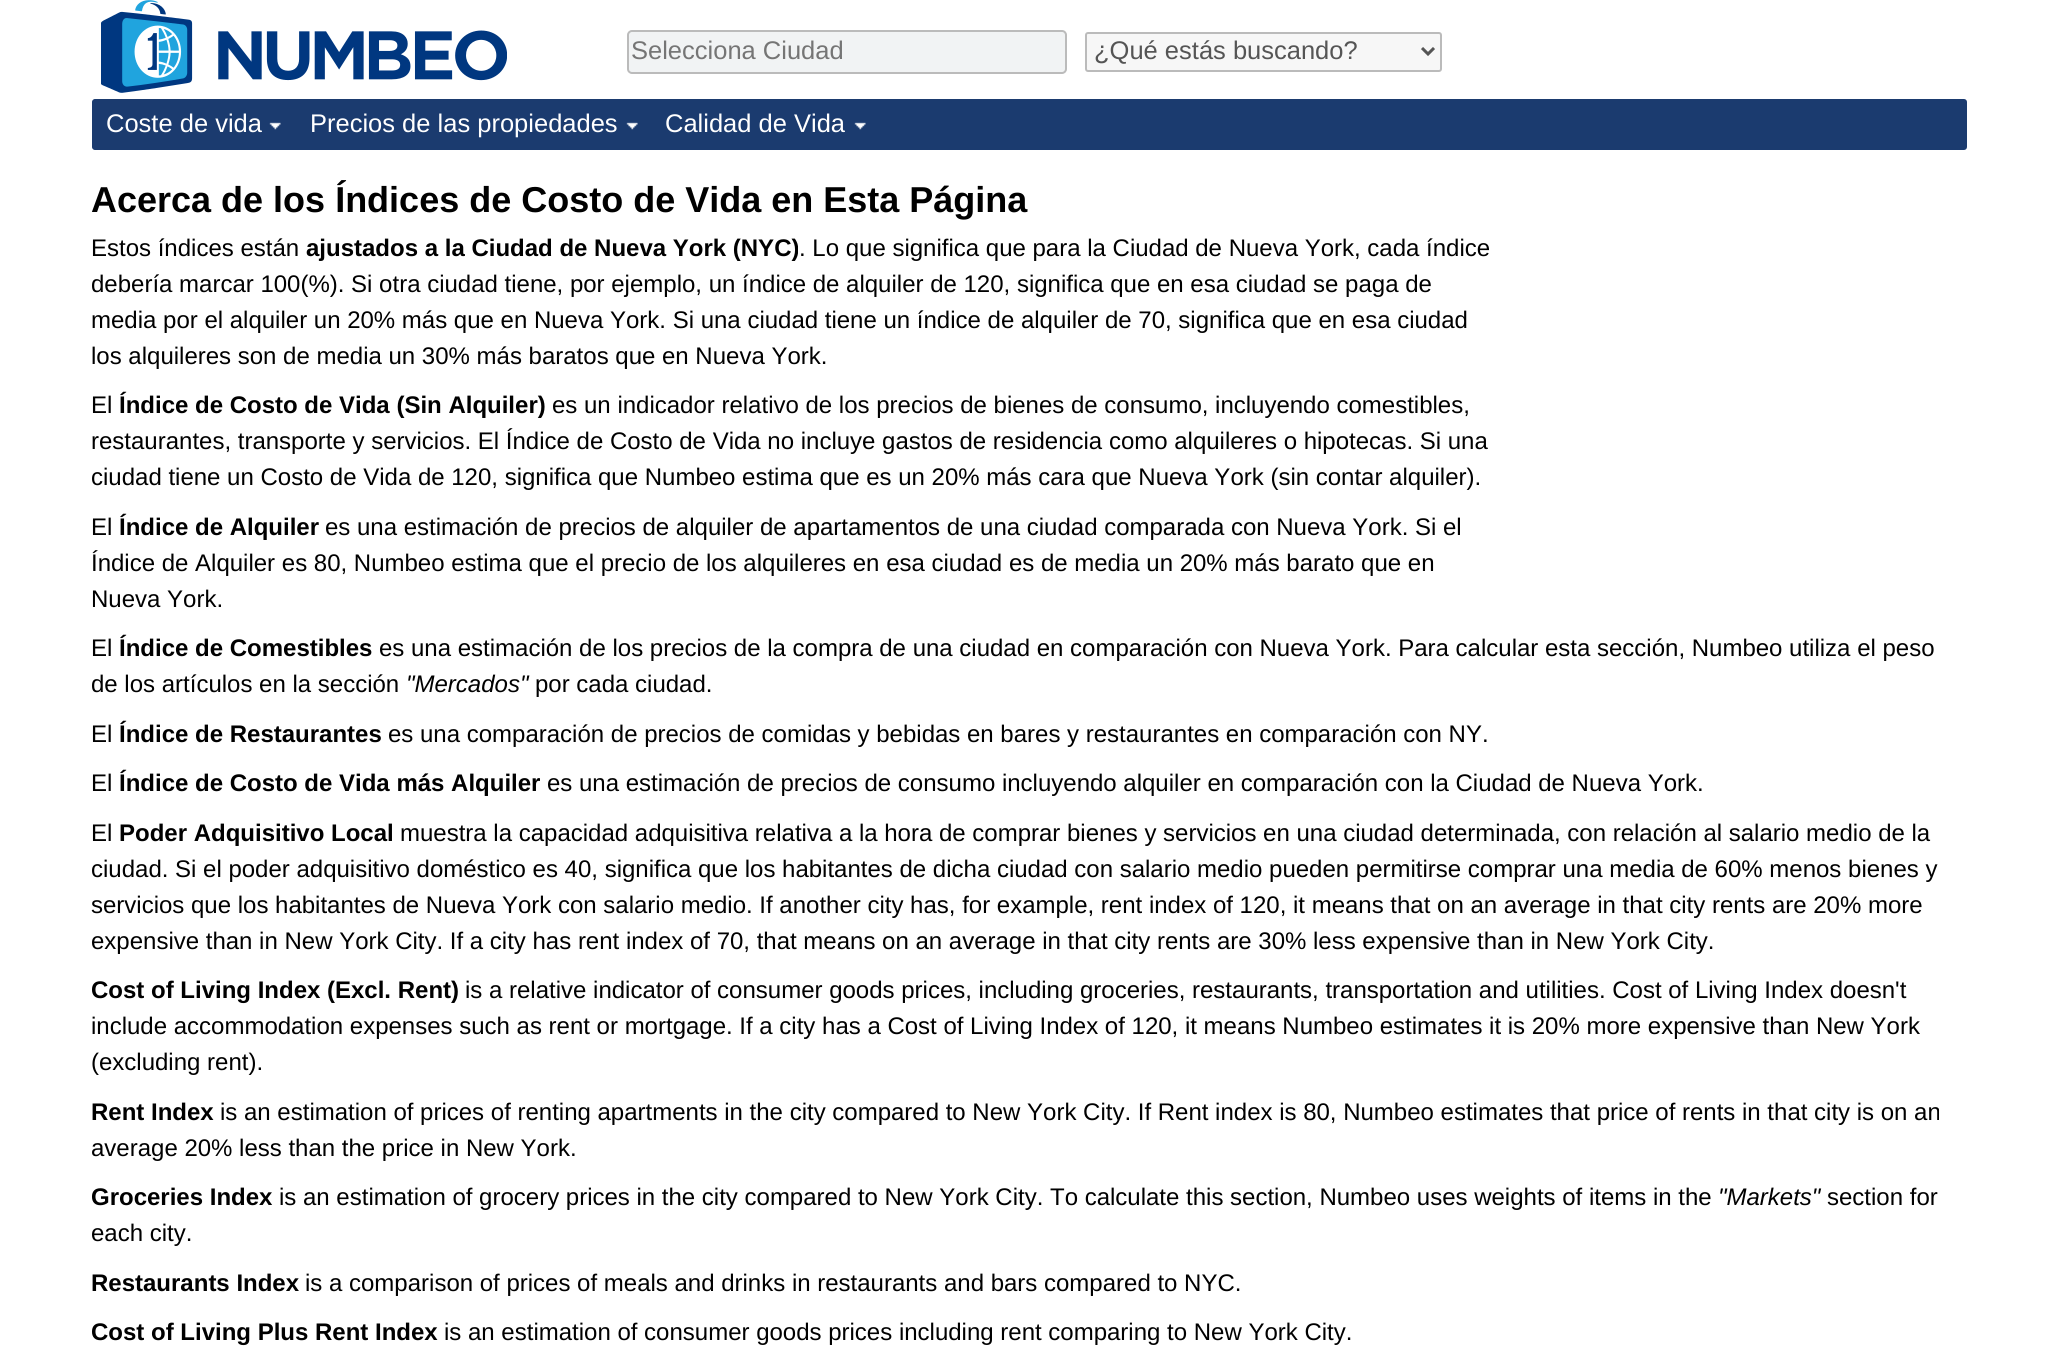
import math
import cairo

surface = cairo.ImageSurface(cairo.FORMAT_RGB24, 2056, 1361)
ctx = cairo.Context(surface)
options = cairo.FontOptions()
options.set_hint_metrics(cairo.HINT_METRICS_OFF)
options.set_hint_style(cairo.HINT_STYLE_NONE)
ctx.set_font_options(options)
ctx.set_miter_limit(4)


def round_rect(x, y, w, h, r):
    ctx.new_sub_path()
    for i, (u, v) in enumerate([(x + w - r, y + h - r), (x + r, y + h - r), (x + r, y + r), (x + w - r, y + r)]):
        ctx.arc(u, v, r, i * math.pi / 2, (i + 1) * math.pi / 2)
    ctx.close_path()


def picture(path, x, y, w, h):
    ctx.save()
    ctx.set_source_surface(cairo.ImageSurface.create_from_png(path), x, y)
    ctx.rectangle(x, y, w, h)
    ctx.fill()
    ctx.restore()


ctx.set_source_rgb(1, 1, 1)
ctx.paint()
picture("img1.png", 101, 0, 92, 93)
picture("img2.png", 218, 30, 289, 51)
ctx.set_source_rgb(0.945, 0.953, 0.957)
round_rect(628, 31, 438, 42, 4)
ctx.fill_preserve()
ctx.set_source_rgb(0.733, 0.733, 0.733)
ctx.stroke()
ctx.select_font_face("Liberation Sans")
ctx.set_font_size(25.5)
ctx.set_source_rgb(0.459, 0.459, 0.459)
ctx.move_to(631, 59)
ctx.show_text("Selecciona Ciudad")
ctx.set_source_rgb(0.965, 0.965, 0.965)
round_rect(1086, 33, 355, 38, 2)
ctx.fill_preserve()
ctx.set_source_rgb(0.733, 0.733, 0.733)
ctx.stroke()
ctx.new_path()
ctx.move_to(1422, 48)
ctx.line_to(1428, 54)
ctx.line_to(1434, 48)
ctx.set_source_rgb(0.333, 0.333, 0.333)
ctx.set_line_width(3)
ctx.stroke()
ctx.move_to(1094, 59)
ctx.show_text("¿Qué estás buscando?")
ctx.set_source_rgb(0.106, 0.231, 0.435)
round_rect(92, 99, 1875, 51, 3)
ctx.fill()
round_rect(92, 99, 202, 51, 5)
ctx.fill()
picture("img3.png", 269, 122, 12, 8)
ctx.set_source_rgb(1, 1, 1)
ctx.move_to(106, 132)
ctx.show_text("Coste de vida")
picture("img4.png", 626, 122, 12, 8)
ctx.move_to(310, 132)
ctx.show_text("Precios de las propiedades")
picture("img4.png", 854, 122, 12, 8)
ctx.move_to(665, 132)
ctx.show_text("Calidad de Vida")
ctx.select_font_face("Liberation Sans", cairo.FONT_SLANT_NORMAL, cairo.FONT_WEIGHT_BOLD)
ctx.set_font_size(36)
ctx.set_source_rgb(0, 0, 0)
ctx.move_to(91, 212)
ctx.show_text("Acerca de los Índices de Costo de Vida en Esta Página")
ctx.select_font_face("Liberation Sans")
ctx.set_font_size(24)
ctx.move_to(91, 256)
ctx.show_text("Estos índices están")
ctx.select_font_face("Liberation Sans", cairo.FONT_SLANT_NORMAL, cairo.FONT_WEIGHT_BOLD)
ctx.move_to(306, 256)
ctx.show_text("ajustados a la Ciudad de Nueva York (NYC)")
ctx.select_font_face("Liberation Sans")
ctx.move_to(799, 256)
ctx.show_text(". Lo que significa que para la Ciudad de Nueva York, cada índice")
ctx.move_to(91, 292)
ctx.show_text("debería marcar 100(%). Si otra ciudad tiene, por ejemplo, un índice de alquiler de 120, significa que en esa ciudad se paga de")
ctx.move_to(91, 328)
ctx.show_text("media por el alquiler un 20% más que en Nueva York. Si una ciudad tiene un índice de alquiler de 70, significa que en esa ciudad")
ctx.move_to(91, 364)
ctx.show_text("los alquileres son de media un 30% más baratos que en Nueva York.")
ctx.move_to(91, 413)
ctx.show_text("El")
ctx.select_font_face("Liberation Sans", cairo.FONT_SLANT_NORMAL, cairo.FONT_WEIGHT_BOLD)
ctx.move_to(119, 413)
ctx.show_text("Índice de Costo de Vida (Sin Alquiler)")
ctx.select_font_face("Liberation Sans")
ctx.move_to(552, 413)
ctx.show_text("es un indicador relativo de los precios de bienes de consumo, incluyendo comestibles,")
ctx.move_to(91, 449)
ctx.show_text("restaurantes, transporte y servicios. El Índice de Costo de Vida no incluye gastos de residencia como alquileres o hipotecas. Si una")
ctx.move_to(91, 485)
ctx.show_text("ciudad tiene un Costo de Vida de 120, significa que Numbeo estima que es un 20% más cara que Nueva York (sin contar alquiler).")
ctx.move_to(91, 535)
ctx.show_text("El")
ctx.select_font_face("Liberation Sans", cairo.FONT_SLANT_NORMAL, cairo.FONT_WEIGHT_BOLD)
ctx.move_to(119, 535)
ctx.show_text("Índice de Alquiler")
ctx.select_font_face("Liberation Sans")
ctx.move_to(325, 535)
ctx.show_text("es una estimación de precios de alquiler de apartamentos de una ciudad comparada con Nueva York. Si el")
ctx.move_to(91, 571)
ctx.show_text("Índice de Alquiler es 80, Numbeo estima que el precio de los alquileres en esa ciudad es de media un 20% más barato que en")
ctx.move_to(91, 607)
ctx.show_text("Nueva York.")
ctx.move_to(91, 656)
ctx.show_text("El")
ctx.select_font_face("Liberation Sans", cairo.FONT_SLANT_NORMAL, cairo.FONT_WEIGHT_BOLD)
ctx.move_to(119, 656)
ctx.show_text("Índice de Comestibles")
ctx.select_font_face("Liberation Sans")
ctx.move_to(379, 656)
ctx.show_text("es una estimación de los precios de la compra de una ciudad en comparación con Nueva York. Para calcular esta sección, Numbeo utiliza el peso")
ctx.move_to(91, 692)
ctx.show_text("de los artículos en la sección")
ctx.select_font_face("Liberation Sans", cairo.FONT_SLANT_ITALIC)
ctx.move_to(406, 692)
ctx.show_text("\"Mercados\"")
ctx.select_font_face("Liberation Sans")
ctx.move_to(535, 692)
ctx.show_text("por cada ciudad.")
ctx.move_to(91, 742)
ctx.show_text("El")
ctx.select_font_face("Liberation Sans", cairo.FONT_SLANT_NORMAL, cairo.FONT_WEIGHT_BOLD)
ctx.move_to(119, 742)
ctx.show_text("Índice de Restaurantes")
ctx.select_font_face("Liberation Sans")
ctx.move_to(388, 742)
ctx.show_text("es una comparación de precios de comidas y bebidas en bares y restaurantes en comparación con NY.")
ctx.move_to(91, 791)
ctx.show_text("El")
ctx.select_font_face("Liberation Sans", cairo.FONT_SLANT_NORMAL, cairo.FONT_WEIGHT_BOLD)
ctx.move_to(119, 791)
ctx.show_text("Índice de Costo de Vida más Alquiler")
ctx.select_font_face("Liberation Sans")
ctx.move_to(547, 791)
ctx.show_text("es una estimación de precios de consumo incluyendo alquiler en comparación con la Ciudad de Nueva York.")
ctx.move_to(91, 841)
ctx.show_text("El")
ctx.select_font_face("Liberation Sans", cairo.FONT_SLANT_NORMAL, cairo.FONT_WEIGHT_BOLD)
ctx.move_to(119, 841)
ctx.show_text("Poder Adquisitivo Local")
ctx.select_font_face("Liberation Sans")
ctx.move_to(400, 841)
ctx.show_text("muestra la capacidad adquisitiva relativa a la hora de comprar bienes y servicios en una ciudad determinada, con relación al salario medio de la")
ctx.move_to(91, 877)
ctx.show_text("ciudad. Si el poder adquisitivo doméstico es 40, significa que los habitantes de dicha ciudad con salario medio pueden permitirse comprar una media de 60% menos bienes y")
ctx.move_to(91, 913)
ctx.show_text("servicios que los habitantes de Nueva York con salario medio. If another city has, for example, rent index of 120, it means that on an average in that city rents are 20% more")
ctx.move_to(91, 949)
ctx.show_text("expensive than in New York City. If a city has rent index of 70, that means on an average in that city rents are 30% less expensive than in New York City.")
ctx.select_font_face("Liberation Sans", cairo.FONT_SLANT_NORMAL, cairo.FONT_WEIGHT_BOLD)
ctx.move_to(91, 998)
ctx.show_text("Cost of Living Index (Excl. Rent)")
ctx.select_font_face("Liberation Sans")
ctx.move_to(465, 998)
ctx.show_text("is a relative indicator of consumer goods prices, including groceries, restaurants, transportation and utilities. Cost of Living Index doesn't")
ctx.move_to(91, 1034)
ctx.show_text("include accommodation expenses such as rent or mortgage. If a city has a Cost of Living Index of 120, it means Numbeo estimates it is 20% more expensive than New York")
ctx.move_to(91, 1070)
ctx.show_text("(excluding rent).")
ctx.select_font_face("Liberation Sans", cairo.FONT_SLANT_NORMAL, cairo.FONT_WEIGHT_BOLD)
ctx.move_to(91, 1120)
ctx.show_text("Rent Index")
ctx.select_font_face("Liberation Sans")
ctx.move_to(220, 1120)
ctx.show_text("is an estimation of prices of renting apartments in the city compared to New York City. If Rent index is 80, Numbeo estimates that price of rents in that city is on an")
ctx.move_to(91, 1156)
ctx.show_text("average 20% less than the price in New York.")
ctx.select_font_face("Liberation Sans", cairo.FONT_SLANT_NORMAL, cairo.FONT_WEIGHT_BOLD)
ctx.move_to(91, 1205)
ctx.show_text("Groceries Index")
ctx.select_font_face("Liberation Sans")
ctx.move_to(279, 1205)
ctx.show_text("is an estimation of grocery prices in the city compared to New York City. To calculate this section, Numbeo uses weights of items in the")
ctx.select_font_face("Liberation Sans", cairo.FONT_SLANT_ITALIC)
ctx.move_to(1718, 1205)
ctx.show_text("\"Markets\"")
ctx.select_font_face("Liberation Sans")
ctx.move_to(1827, 1205)
ctx.show_text("section for")
ctx.move_to(91, 1241)
ctx.show_text("each city.")
ctx.select_font_face("Liberation Sans", cairo.FONT_SLANT_NORMAL, cairo.FONT_WEIGHT_BOLD)
ctx.move_to(91, 1291)
ctx.show_text("Restaurants Index")
ctx.select_font_face("Liberation Sans")
ctx.move_to(305, 1291)
ctx.show_text("is a comparison of prices of meals and drinks in restaurants and bars compared to NYC.")
ctx.select_font_face("Liberation Sans", cairo.FONT_SLANT_NORMAL, cairo.FONT_WEIGHT_BOLD)
ctx.move_to(91, 1340)
ctx.show_text("Cost of Living Plus Rent Index")
ctx.select_font_face("Liberation Sans")
ctx.move_to(444, 1340)
ctx.show_text("is an estimation of consumer goods prices including rent comparing to New York City.")
surface.write_to_png("page.png")
